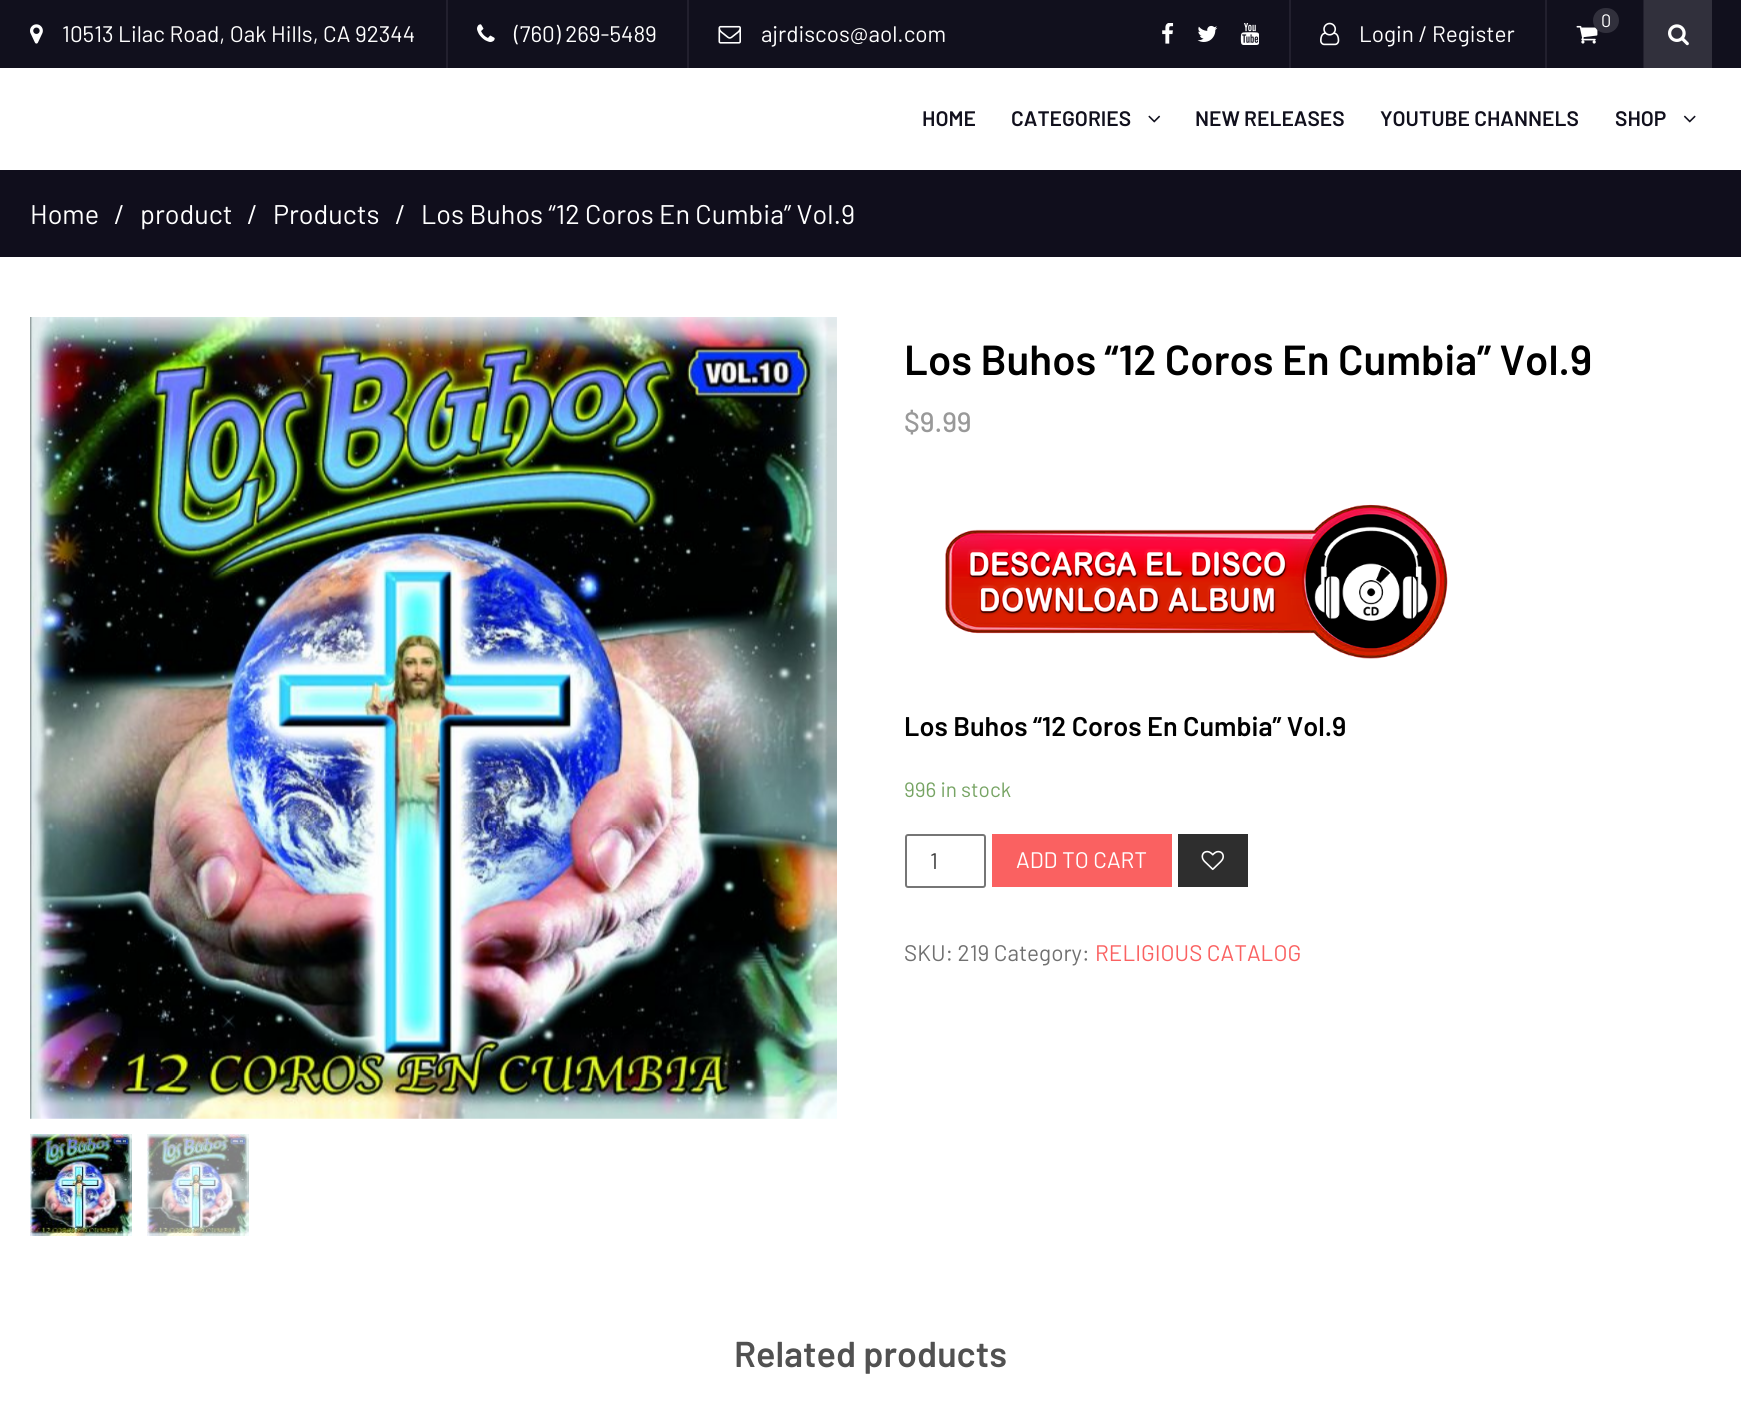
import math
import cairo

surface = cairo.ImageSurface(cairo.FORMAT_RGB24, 1741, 1401)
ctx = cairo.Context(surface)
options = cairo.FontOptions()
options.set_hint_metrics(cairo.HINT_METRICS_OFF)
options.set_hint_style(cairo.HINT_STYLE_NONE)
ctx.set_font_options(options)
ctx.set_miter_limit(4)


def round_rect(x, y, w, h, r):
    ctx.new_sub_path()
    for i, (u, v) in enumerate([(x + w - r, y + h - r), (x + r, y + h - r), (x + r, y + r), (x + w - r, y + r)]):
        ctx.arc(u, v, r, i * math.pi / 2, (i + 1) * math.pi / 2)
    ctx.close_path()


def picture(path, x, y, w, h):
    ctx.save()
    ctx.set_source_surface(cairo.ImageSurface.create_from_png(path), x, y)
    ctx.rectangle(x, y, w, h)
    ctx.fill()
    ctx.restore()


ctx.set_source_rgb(1, 1, 1)
ctx.paint()
ctx.set_source_rgb(0.067, 0.063, 0.114)
ctx.rectangle(0, 0, 1741, 68)
ctx.fill()
ctx.set_source_rgb(0.133, 0.125, 0.18)
ctx.rectangle(446, 0, 2, 68)
ctx.fill()
picture("img1.png", 30, 24, 13, 20)
ctx.select_font_face("Barlow")
ctx.set_font_size(22.5)
ctx.set_source_rgb(1, 1, 1)
ctx.move_to(62, 42)
ctx.show_text("10513 Lilac Road, Oak Hills, CA 92344")
ctx.set_source_rgb(0.133, 0.125, 0.18)
ctx.rectangle(687, 0, 2, 68)
ctx.fill()
picture("img2.png", 477, 24, 18, 18)
ctx.set_source_rgb(1, 1, 1)
ctx.move_to(514, 42)
ctx.show_text("(760) 269-5489")
picture("img3.png", 718, 25, 23, 19)
ctx.move_to(761, 42)
ctx.show_text("ajrdiscos@aol.com")
ctx.set_source_rgb(0.133, 0.125, 0.18)
ctx.rectangle(1289, 0, 2, 68)
ctx.fill()
picture("img4.png", 1162, 23, 12, 21)
picture("img5.png", 1197, 25, 21, 17)
picture("img6.png", 1240, 23, 19, 22)
ctx.rectangle(1643, 0, 1, 68)
ctx.fill()
picture("img7.png", 1576, 25, 22, 19)
ctx.set_source_rgb(0.192, 0.188, 0.235)
round_rect(1593, 8, 26, 25, 12.5)
ctx.fill()
ctx.set_font_size(18)
ctx.set_source_rgb(1, 1, 1)
ctx.move_to(1601, 27)
ctx.show_text("0")
ctx.set_source_rgb(0.192, 0.188, 0.235)
ctx.rectangle(1644, 0, 68, 68)
ctx.fill()
picture("img8.png", 1668, 24, 21, 22)
ctx.set_source_rgb(0.133, 0.125, 0.18)
ctx.rectangle(1545, 0, 2, 68)
ctx.fill()
picture("img9.png", 1320, 22, 20, 24)
ctx.set_font_size(22.5)
ctx.set_source_rgb(1, 1, 1)
ctx.move_to(1359, 42)
ctx.show_text("Login / Register")
ctx.select_font_face("Barlow SemiBold")
ctx.set_font_size(21)
ctx.set_source_rgb(0.067, 0.063, 0.114)
ctx.move_to(922, 126)
ctx.show_text("HOME")
ctx.move_to(1011, 126)
ctx.show_text("CATEGORIES")
picture("img10.png", 1148, 115, 13, 8)
ctx.move_to(1195, 126)
ctx.show_text("NEW RELEASES")
ctx.move_to(1380, 126)
ctx.show_text("YOUTUBE CHANNELS")
ctx.move_to(1615, 126)
ctx.show_text("SHOP")
picture("img11.png", 1683, 115, 13, 8)
ctx.set_source_rgb(0.063, 0.055, 0.11)
ctx.rectangle(0, 170, 1741, 87)
ctx.fill()
ctx.select_font_face("Barlow")
ctx.set_font_size(27)
ctx.set_source_rgb(1, 1, 1)
ctx.move_to(30, 224)
ctx.show_text("Home")
ctx.move_to(114, 224)
ctx.show_text("/")
ctx.move_to(140, 224)
ctx.show_text("product")
ctx.move_to(247, 224)
ctx.show_text("/")
ctx.move_to(273, 224)
ctx.show_text("Products")
ctx.move_to(395, 224)
ctx.show_text("/")
ctx.move_to(421, 224)
ctx.show_text("Los Buhos “12 Coros En Cumbia” Vol.9")
picture("img12.png", 30, 317, 807, 802)
picture("img13.png", 30, 1134, 102, 102)
picture("img14.png", 147, 1134, 102, 102)
ctx.select_font_face("Barlow SemiBold")
ctx.set_font_size(42)
ctx.set_source_rgb(0, 0, 0)
ctx.move_to(904, 375)
ctx.show_text("Los Buhos “12 Coros En Cumbia” Vol.9")
ctx.select_font_face("Barlow Medium")
ctx.set_font_size(28)
ctx.set_source_rgb(0.6, 0.6, 0.6)
ctx.move_to(904, 432)
ctx.show_text("$9.99")
picture("img15.png", 945, 504, 503, 155)
ctx.select_font_face("Barlow SemiBold")
ctx.set_font_size(27)
ctx.set_source_rgb(0, 0, 0)
ctx.move_to(904, 736)
ctx.show_text("Los Buhos “12 Coros En Cumbia” Vol.9")
ctx.select_font_face("Barlow")
ctx.set_font_size(20.75)
ctx.set_source_rgb(0.467, 0.643, 0.392)
ctx.move_to(904, 797)
ctx.show_text("996 in stock")
round_rect(906, 835, 79, 52, 2)
ctx.set_source_rgb(0.463, 0.463, 0.463)
ctx.stroke()
ctx.set_font_size(22.5)
ctx.set_source_rgb(0.251, 0.251, 0.251)
ctx.move_to(930, 869)
ctx.show_text("1")
ctx.set_source_rgb(0.98, 0.38, 0.38)
ctx.rectangle(992, 834, 180, 53)
ctx.fill()
ctx.set_source_rgb(1, 1, 1)
ctx.move_to(1016, 868)
ctx.show_text("ADD TO CART")
ctx.set_source_rgb(0.18, 0.18, 0.18)
ctx.rectangle(1178, 834, 70, 53)
ctx.fill()
picture("img16.png", 1201, 850, 23, 21)
ctx.set_source_rgb(0.439, 0.439, 0.439)
ctx.move_to(904, 961)
ctx.show_text("SKU: 219 Category:")
ctx.set_source_rgb(0.98, 0.38, 0.38)
ctx.move_to(1095, 961)
ctx.show_text("RELIGIOUS CATALOG")
ctx.select_font_face("Barlow SemiBold")
ctx.set_font_size(36)
ctx.set_source_rgb(0.318, 0.318, 0.318)
ctx.move_to(734, 1367)
ctx.show_text("Related products")
surface.write_to_png("page.png")
